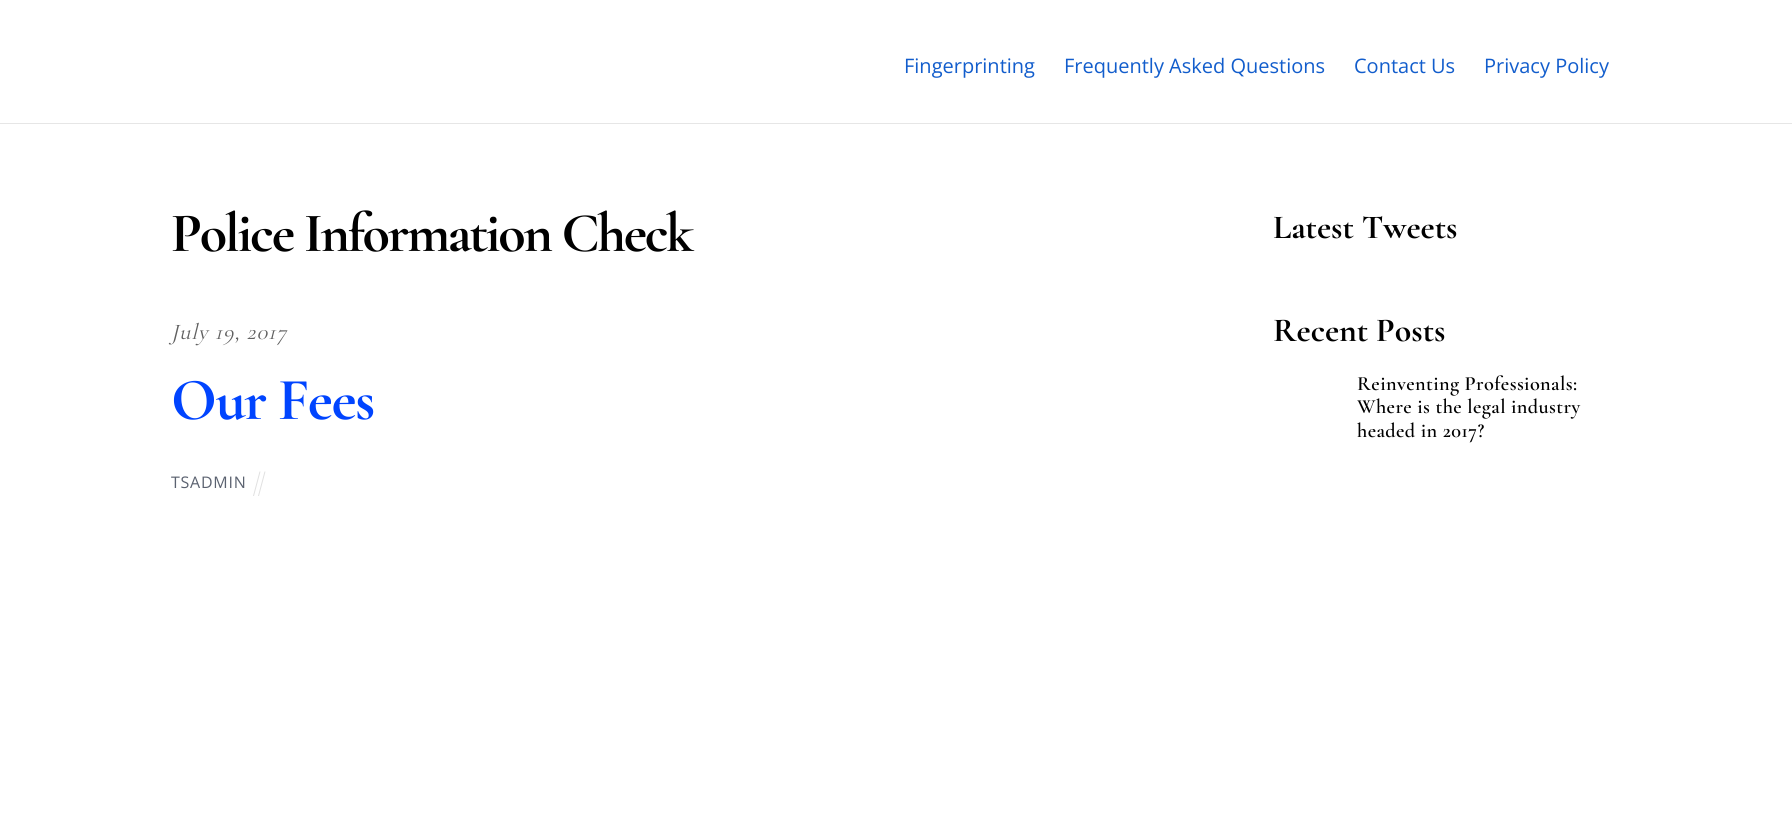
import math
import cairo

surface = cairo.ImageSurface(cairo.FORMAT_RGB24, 1792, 840)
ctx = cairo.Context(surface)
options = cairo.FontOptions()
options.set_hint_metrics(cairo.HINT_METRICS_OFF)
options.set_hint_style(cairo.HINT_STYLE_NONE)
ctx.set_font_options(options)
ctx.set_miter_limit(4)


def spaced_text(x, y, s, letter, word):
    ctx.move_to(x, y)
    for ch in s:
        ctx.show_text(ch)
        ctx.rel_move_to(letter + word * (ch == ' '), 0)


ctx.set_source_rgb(1, 1, 1)
ctx.paint()
ctx.set_source_rgb(0.902, 0.902, 0.902)
ctx.rectangle(0, 123, 1792, 1)
ctx.fill()
ctx.select_font_face("Open Sans")
ctx.set_font_size(20)
ctx.set_source_rgb(0.071, 0.365, 0.8)
ctx.move_to(904, 73)
ctx.show_text("Fingerprinting")
ctx.move_to(1064, 73)
ctx.show_text("Frequently Asked Questions")
ctx.move_to(1354, 73)
ctx.show_text("Contact Us")
ctx.move_to(1484, 73)
ctx.show_text("Privacy Policy")
ctx.select_font_face("Cormorant Garamond", cairo.FONT_SLANT_NORMAL, cairo.FONT_WEIGHT_BOLD)
ctx.set_font_size(56)
ctx.set_source_rgb(0, 0, 0)
spaced_text(171, 251, "Police Information Check", -2.25, 0)
ctx.select_font_face("Cormorant Garamond", cairo.FONT_SLANT_ITALIC)
ctx.set_font_size(22.5)
ctx.set_source_rgb(0.376, 0.376, 0.376)
spaced_text(171, 339, "July 19, 2017", 0.9, 0)
ctx.select_font_face("Cormorant Garamond", cairo.FONT_SLANT_NORMAL, cairo.FONT_WEIGHT_BOLD)
ctx.set_font_size(60)
ctx.set_source_rgb(0, 0.267, 1)
spaced_text(171, 419, "Our Fees", -1.5, 0)
ctx.select_font_face("Open Sans")
ctx.set_font_size(16)
ctx.set_source_rgb(0.357, 0.384, 0.439)
spaced_text(171, 488, "TSADMIN", 0.75, 0)
ctx.set_source_rgb(0.878, 0.878, 0.878)
ctx.new_path()
ctx.move_to(264.5, 471.5)
ctx.line_to(265.5, 471.5)
ctx.line_to(259, 496)
ctx.line_to(258, 496)
ctx.close_path()
ctx.fill()
ctx.new_path()
ctx.move_to(259.5, 471.5)
ctx.line_to(260.5, 471.5)
ctx.line_to(254, 496)
ctx.line_to(253, 496)
ctx.close_path()
ctx.fill()
ctx.select_font_face("Cormorant Garamond", cairo.FONT_SLANT_NORMAL, cairo.FONT_WEIGHT_BOLD)
ctx.set_font_size(33.75)
ctx.set_source_rgb(0, 0, 0)
ctx.move_to(1273, 238)
ctx.show_text("Latest Tweets")
ctx.move_to(1273, 341)
ctx.show_text("Recent Posts")
ctx.select_font_face("Cormorant Garamond SemiBold")
ctx.set_font_size(20.25)
spaced_text(1357, 390, "Reinventing Professionals:", 0.4, 0)
spaced_text(1357, 413, "Where is the legal industry", 0.4, 0)
spaced_text(1357, 437, "headed in 2017?", 0.4, 0)
surface.write_to_png("page.png")
